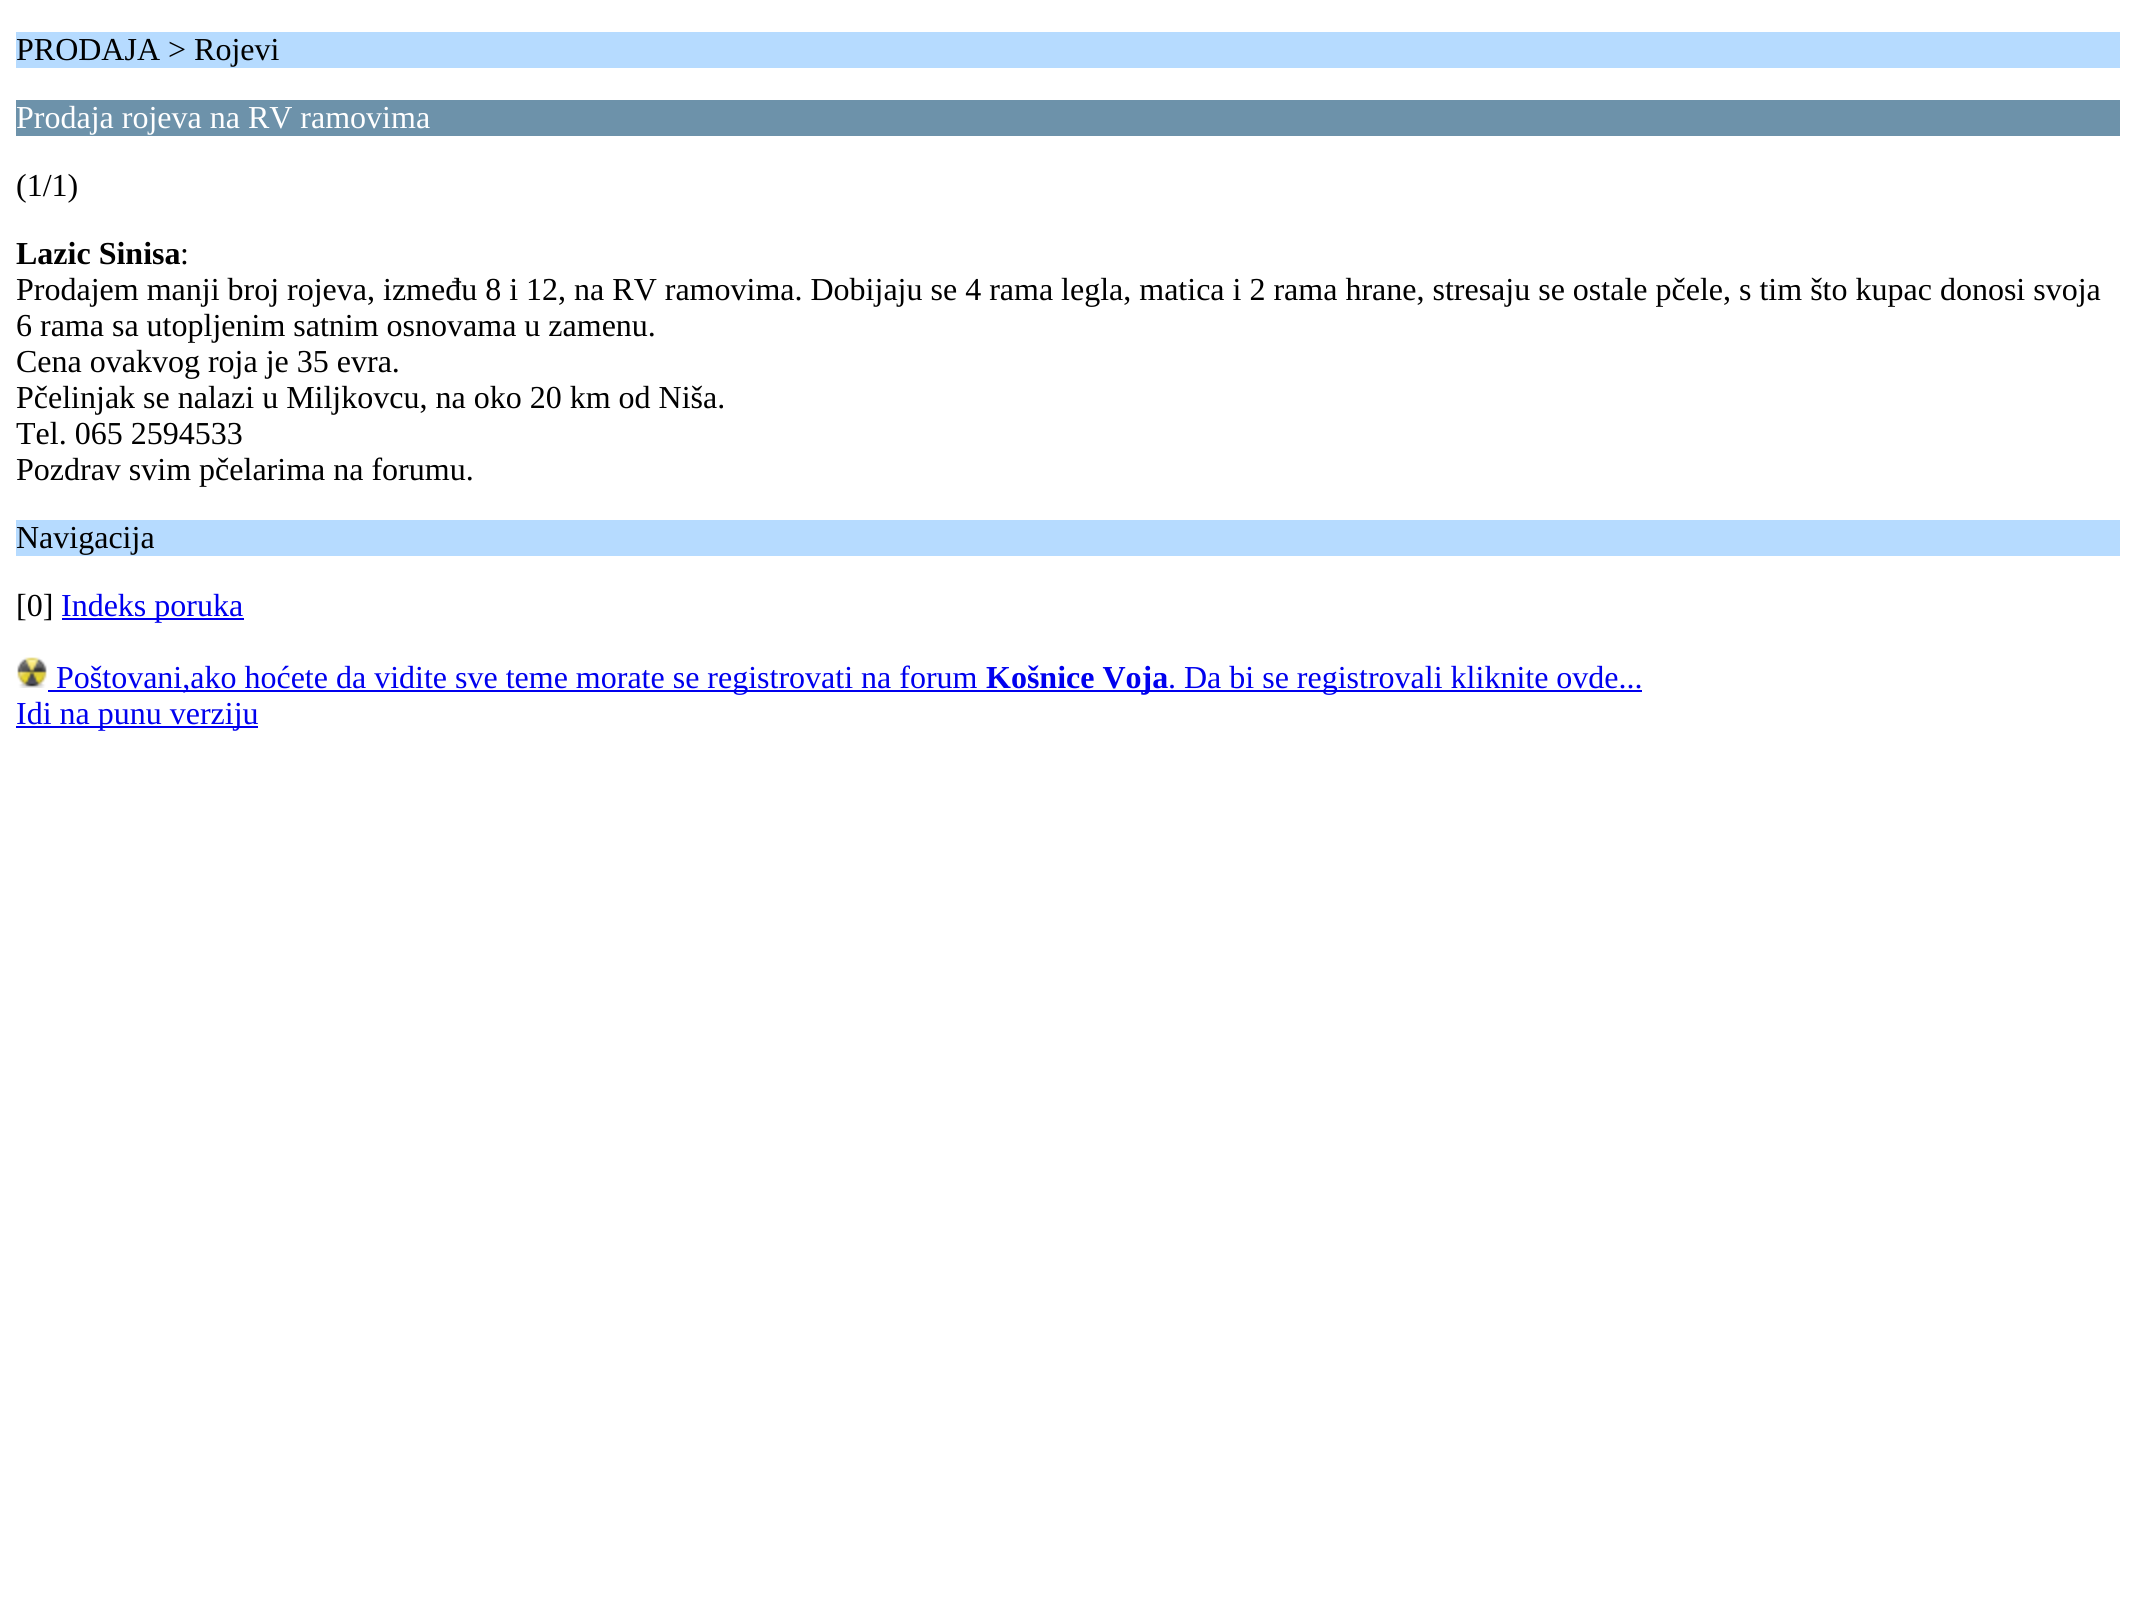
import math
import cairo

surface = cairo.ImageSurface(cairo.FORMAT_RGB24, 2136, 1623)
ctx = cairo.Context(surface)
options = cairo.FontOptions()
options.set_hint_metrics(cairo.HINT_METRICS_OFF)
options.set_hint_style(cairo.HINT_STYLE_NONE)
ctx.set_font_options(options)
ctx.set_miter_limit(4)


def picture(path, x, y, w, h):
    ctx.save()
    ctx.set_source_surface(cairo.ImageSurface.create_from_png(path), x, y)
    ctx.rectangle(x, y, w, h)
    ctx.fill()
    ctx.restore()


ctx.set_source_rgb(1, 1, 1)
ctx.paint()
ctx.set_source_rgb(0.714, 0.859, 1)
ctx.rectangle(16, 32, 2104, 36)
ctx.fill()
ctx.select_font_face("Liberation Serif")
ctx.set_font_size(32)
ctx.set_source_rgb(0, 0, 0)
ctx.move_to(16, 60)
ctx.show_text("PRODAJA > Rojevi")
ctx.set_source_rgb(0.427, 0.573, 0.667)
ctx.rectangle(16, 100, 2104, 36)
ctx.fill()
ctx.set_source_rgb(1, 1, 1)
ctx.move_to(16, 128)
ctx.show_text("Prodaja rojeva na RV ramovima")
ctx.set_source_rgb(0, 0, 0)
ctx.move_to(16, 196)
ctx.show_text("(1/1)")
ctx.select_font_face("Liberation Serif", cairo.FONT_SLANT_NORMAL, cairo.FONT_WEIGHT_BOLD)
ctx.move_to(16, 264)
ctx.show_text("Lazic Sinisa")
ctx.select_font_face("Liberation Serif")
ctx.move_to(180, 264)
ctx.show_text(":")
ctx.move_to(16, 300)
ctx.show_text("Prodajem manji broj rojeva, između 8 i 12, na RV ramovima. Dobijaju se 4 rama legla, matica i 2 rama hrane, stresaju se ostale pčele, s tim što kupac donosi svoja")
ctx.move_to(16, 336)
ctx.show_text("6 rama sa utopljenim satnim osnovama u zamenu.")
ctx.move_to(16, 372)
ctx.show_text("Cena ovakvog roja je 35 evra.")
ctx.move_to(16, 408)
ctx.show_text("Pčelinjak se nalazi u Miljkovcu, na oko 20 km od Niša.")
ctx.move_to(16, 444)
ctx.show_text("Tel. 065 2594533")
ctx.move_to(16, 480)
ctx.show_text("Pozdrav svim pčelarima na forumu.")
ctx.set_source_rgb(0.714, 0.859, 1)
ctx.rectangle(16, 520, 2104, 36)
ctx.fill()
ctx.set_source_rgb(0, 0, 0)
ctx.move_to(16, 548)
ctx.show_text("Navigacija")
ctx.move_to(16, 616)
ctx.show_text("[0]")
ctx.set_source_rgb(0, 0, 0.933)
ctx.rectangle(62, 618, 182, 2)
ctx.fill()
ctx.move_to(61, 616)
ctx.show_text("Indeks poruka")
picture("img1.png", 17, 657, 30, 31)
ctx.rectangle(48, 690, 1594, 2)
ctx.fill()
ctx.move_to(56, 688)
ctx.show_text("Poštovani,ako hoćete da vidite sve teme morate se registrovati na forum")
ctx.select_font_face("Liberation Serif", cairo.FONT_SLANT_NORMAL, cairo.FONT_WEIGHT_BOLD)
ctx.move_to(986, 688)
ctx.show_text("Košnice Voja")
ctx.select_font_face("Liberation Serif")
ctx.move_to(1168, 688)
ctx.show_text(". Da bi se registrovali kliknite ovde...")
ctx.rectangle(16, 726, 242, 2)
ctx.fill()
ctx.move_to(16, 724)
ctx.show_text("Idi na punu verziju")
surface.write_to_png("page.png")
